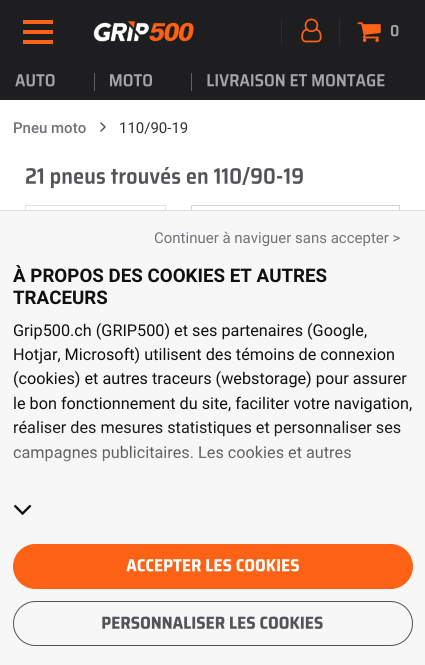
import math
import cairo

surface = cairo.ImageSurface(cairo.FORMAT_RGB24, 425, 665)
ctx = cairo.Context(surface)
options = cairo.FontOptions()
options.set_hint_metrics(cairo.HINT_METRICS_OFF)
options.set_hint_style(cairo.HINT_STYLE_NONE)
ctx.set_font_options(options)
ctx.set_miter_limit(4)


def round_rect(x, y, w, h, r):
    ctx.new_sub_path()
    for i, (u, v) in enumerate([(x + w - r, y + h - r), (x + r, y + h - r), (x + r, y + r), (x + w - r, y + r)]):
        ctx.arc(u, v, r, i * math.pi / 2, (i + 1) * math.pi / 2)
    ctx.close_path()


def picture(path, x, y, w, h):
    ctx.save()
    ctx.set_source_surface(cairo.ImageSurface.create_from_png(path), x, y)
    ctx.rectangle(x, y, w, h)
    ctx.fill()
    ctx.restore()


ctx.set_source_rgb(1, 1, 1)
ctx.paint()
ctx.set_source_rgb(0.118, 0.118, 0.125)
ctx.rectangle(0, 0, 425, 100)
ctx.fill()
ctx.set_source_rgb(0.996, 0.384, 0.082)
ctx.rectangle(23, 20, 30, 4)
ctx.fill()
ctx.rectangle(23, 30, 30, 4)
ctx.fill()
ctx.rectangle(23, 40, 30, 4)
ctx.fill()
picture("img1.png", 93, 21, 101, 21)
ctx.set_source_rgb(0.173, 0.173, 0.18)
ctx.rectangle(281, 19, 1, 26)
ctx.fill()
picture("img2.png", 301, 18, 21, 25)
ctx.rectangle(339, 19, 1, 26)
ctx.fill()
picture("img3.png", 357, 22, 24, 20)
picture("img4.png", 390, 24, 9, 13)
picture("img5.png", 15, 74, 40, 13)
ctx.set_source_rgb(0.384, 0.384, 0.388)
ctx.rectangle(94, 73, 1, 18)
ctx.fill()
picture("img6.png", 110, 74, 42, 13)
ctx.rectangle(191, 73, 1, 18)
ctx.fill()
picture("img7.png", 207, 74, 178, 13)
ctx.select_font_face("Roboto Medium")
ctx.set_font_size(15)
ctx.set_source_rgb(0.447, 0.447, 0.471)
ctx.move_to(13, 133)
ctx.show_text("Pneu moto")
picture("img8.png", 100, 122, 6, 10)
ctx.select_font_face("Roboto")
ctx.set_source_rgb(0.192, 0.192, 0.196)
ctx.move_to(119, 133)
ctx.show_text("110/90-19")
picture("img9.png", 26, 167, 277, 22)
ctx.rectangle(25.5, 205.5, 140, 43)
ctx.set_source_rgb(0.871, 0.886, 0.902)
ctx.set_line_width(1)
ctx.stroke()
ctx.rectangle(191.5, 205.5, 208, 43)
ctx.set_source_rgb(0.808, 0.831, 0.855)
ctx.stroke()
ctx.set_source_rgb(0.965, 0.965, 0.965)
ctx.rectangle(0, 211, 425, 454)
ctx.fill()
ctx.set_source_rgb(0.867, 0.867, 0.867)
ctx.rectangle(0, 210, 425, 1)
ctx.fill()
ctx.set_source_rgb(0.447, 0.447, 0.471)
ctx.move_to(154, 243)
ctx.show_text("Continuer à naviguer sans accepter >")
ctx.select_font_face("Roboto", cairo.FONT_SLANT_NORMAL, cairo.FONT_WEIGHT_BOLD)
ctx.set_font_size(18.75)
ctx.set_source_rgb(0.059, 0.067, 0.067)
ctx.move_to(13, 282)
ctx.show_text("À PROPOS DES COOKIES ET AUTRES")
ctx.move_to(13, 304)
ctx.show_text("TRACEURS")
ctx.select_font_face("Roboto")
ctx.set_font_size(16.25)
ctx.move_to(13, 336)
ctx.show_text("Grip500.ch (GRIP500) et ses partenaires (Google,")
ctx.move_to(13, 360)
ctx.show_text("Hotjar, Microsoft) utilisent des témoins de connexion")
ctx.move_to(13, 384)
ctx.show_text("(cookies) et autres traceurs (webstorage) pour assurer")
ctx.move_to(13, 409)
ctx.show_text("le bon fonctionnement du site, faciliter votre navigation,")
ctx.move_to(13, 433)
ctx.show_text("réaliser des mesures statistiques et personnaliser ses")
ctx.move_to(13, 458)
ctx.show_text("campagnes publicitaires. Les cookies et autres")
gradient = cairo.LinearGradient(213, 425, 213, 488)
gradient.add_color_stop_rgba(0, 0.961, 0.961, 0.961, 0)
gradient.add_color_stop_rgba(1, 0.961, 0.961, 0.961, 0.8)
ctx.set_source(gradient)
ctx.rectangle(13, 427, 387, 35)
ctx.fill()
picture("img10.png", 13, 504, 19, 11)
ctx.set_source_rgb(0.996, 0.384, 0.082)
round_rect(13.5, 544.5, 399, 44, 22)
ctx.fill_preserve()
ctx.stroke()
picture("img11.png", 126, 559, 173, 13)
round_rect(13.5, 601.5, 399, 44, 22)
ctx.set_source_rgb(0.329, 0.329, 0.345)
ctx.stroke()
picture("img12.png", 102, 616, 221, 13)
surface.write_to_png("page.png")
